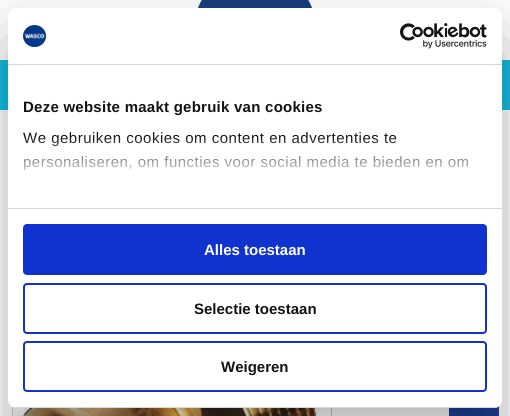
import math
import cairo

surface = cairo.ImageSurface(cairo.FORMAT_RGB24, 510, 416)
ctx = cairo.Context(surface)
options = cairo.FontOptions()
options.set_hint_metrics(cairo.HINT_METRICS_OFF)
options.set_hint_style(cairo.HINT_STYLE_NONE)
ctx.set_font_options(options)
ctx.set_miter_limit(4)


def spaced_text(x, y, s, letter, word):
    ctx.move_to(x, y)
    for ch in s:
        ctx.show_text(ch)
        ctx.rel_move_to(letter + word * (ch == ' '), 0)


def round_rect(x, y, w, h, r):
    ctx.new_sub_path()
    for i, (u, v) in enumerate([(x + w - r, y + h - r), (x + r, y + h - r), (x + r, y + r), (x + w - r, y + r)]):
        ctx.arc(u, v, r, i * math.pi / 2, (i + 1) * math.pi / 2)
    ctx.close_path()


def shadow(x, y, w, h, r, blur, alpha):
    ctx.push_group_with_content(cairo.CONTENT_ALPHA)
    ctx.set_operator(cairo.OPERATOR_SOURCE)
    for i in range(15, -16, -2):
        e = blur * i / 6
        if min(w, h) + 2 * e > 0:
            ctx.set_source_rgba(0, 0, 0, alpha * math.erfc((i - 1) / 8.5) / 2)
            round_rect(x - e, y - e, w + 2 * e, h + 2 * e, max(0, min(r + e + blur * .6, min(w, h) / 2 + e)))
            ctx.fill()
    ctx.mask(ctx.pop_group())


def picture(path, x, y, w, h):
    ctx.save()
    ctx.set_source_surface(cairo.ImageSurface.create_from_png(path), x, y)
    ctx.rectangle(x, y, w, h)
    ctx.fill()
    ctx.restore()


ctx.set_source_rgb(1, 1, 1)
ctx.paint()
picture("img1.png", 198, 0, 114, 8)
ctx.set_source_rgb(0.075, 0.745, 0.875)
ctx.rectangle(0, 60, 8, 50)
ctx.fill()
ctx.rectangle(502, 60, 8, 50)
ctx.fill()
ctx.rectangle(12.5, 288.5, 319, 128)
ctx.set_source_rgb(0.784, 0.784, 0.745)
ctx.set_line_width(1)
ctx.stroke()
picture("img2.png", 13, 407, 307, 9)
ctx.set_source_rgb(0.11, 0.247, 0.584)
ctx.rectangle(469, 408, 10, 8)
ctx.fill()
ctx.set_fill_rule(cairo.FILL_RULE_EVEN_ODD)
ctx.new_path()
ctx.move_to(452, 363)
ctx.line_to(496, 363)
ctx.curve_to(498, 363, 499, 364, 499, 366)
ctx.line_to(499, 416)
ctx.line_to(449, 416)
ctx.line_to(449, 366)
ctx.curve_to(449, 364, 450, 363, 452, 363)
ctx.close_path()
ctx.move_to(469, 383)
ctx.line_to(479, 383)
ctx.line_to(479, 416)
ctx.line_to(469, 416)
ctx.close_path()
ctx.fill()
ctx.set_source_rgb(0, 0, 0)
shadow(8, 40, 494, 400, 8, 34, 0.3)
ctx.set_source_rgb(1, 1, 1)
round_rect(8, 8, 494, 400, 8)
ctx.fill()
ctx.set_source_rgb(0.839, 0.839, 0.839)
ctx.rectangle(8, 64, 494, 1)
ctx.fill()
picture("img3.png", 23, 25, 23, 22)
picture("img4.png", 400, 23, 87, 26)
ctx.rectangle(8, 208, 494, 1)
ctx.fill()
ctx.select_font_face("Liberation Sans", cairo.FONT_SLANT_NORMAL, cairo.FONT_WEIGHT_BOLD)
ctx.set_font_size(15)
ctx.set_source_rgb(0.078, 0.078, 0.078)
spaced_text(23, 112, "Deze website maakt gebruik van cookies", 0.25, 0)
ctx.select_font_face("Liberation Sans")
spaced_text(23, 143, "We gebruiken cookies om content en advertenties te", 0.5, 0)
spaced_text(23, 167, "personaliseren, om functies voor social media te bieden en om", 0.5, 0)
gradient = cairo.LinearGradient(249, 208, 249, 136)
gradient.add_color_stop_rgba(0, 1, 1, 1, 1)
gradient.add_color_stop_rgba(0.5, 1, 1, 1, 0.8)
gradient.add_color_stop_rgba(1, 1, 1, 1, 0)
ctx.set_source(gradient)
ctx.rectangle(24, 137, 445, 34)
ctx.fill()
ctx.save()
ctx.set_fill_rule(cairo.FILL_RULE_WINDING)
round_rect(8, 8, 494, 400, 8)
ctx.clip()
ctx.set_source_rgb(0.839, 0.839, 0.839)
ctx.rectangle(8, 407, 494, 1)
ctx.fill()
ctx.restore()
ctx.set_source_rgb(0.063, 0.196, 0.812)
round_rect(24, 225, 462, 49, 3)
ctx.fill_preserve()
ctx.set_line_width(2)
ctx.stroke()
ctx.select_font_face("Liberation Sans", cairo.FONT_SLANT_NORMAL, cairo.FONT_WEIGHT_BOLD)
ctx.set_source_rgb(1, 1, 1)
ctx.move_to(204, 255)
ctx.show_text("Alles toestaan")
round_rect(24, 284, 462, 49, 3)
ctx.set_source_rgb(0.063, 0.196, 0.812)
ctx.stroke()
ctx.set_source_rgb(0.078, 0.078, 0.078)
ctx.move_to(194, 314)
ctx.show_text("Selectie toestaan")
round_rect(24, 342, 462, 49, 3)
ctx.set_source_rgb(0.063, 0.196, 0.812)
ctx.stroke()
ctx.set_source_rgb(0.078, 0.078, 0.078)
ctx.move_to(221, 372)
ctx.show_text("Weigeren")
surface.write_to_png("page.png")
